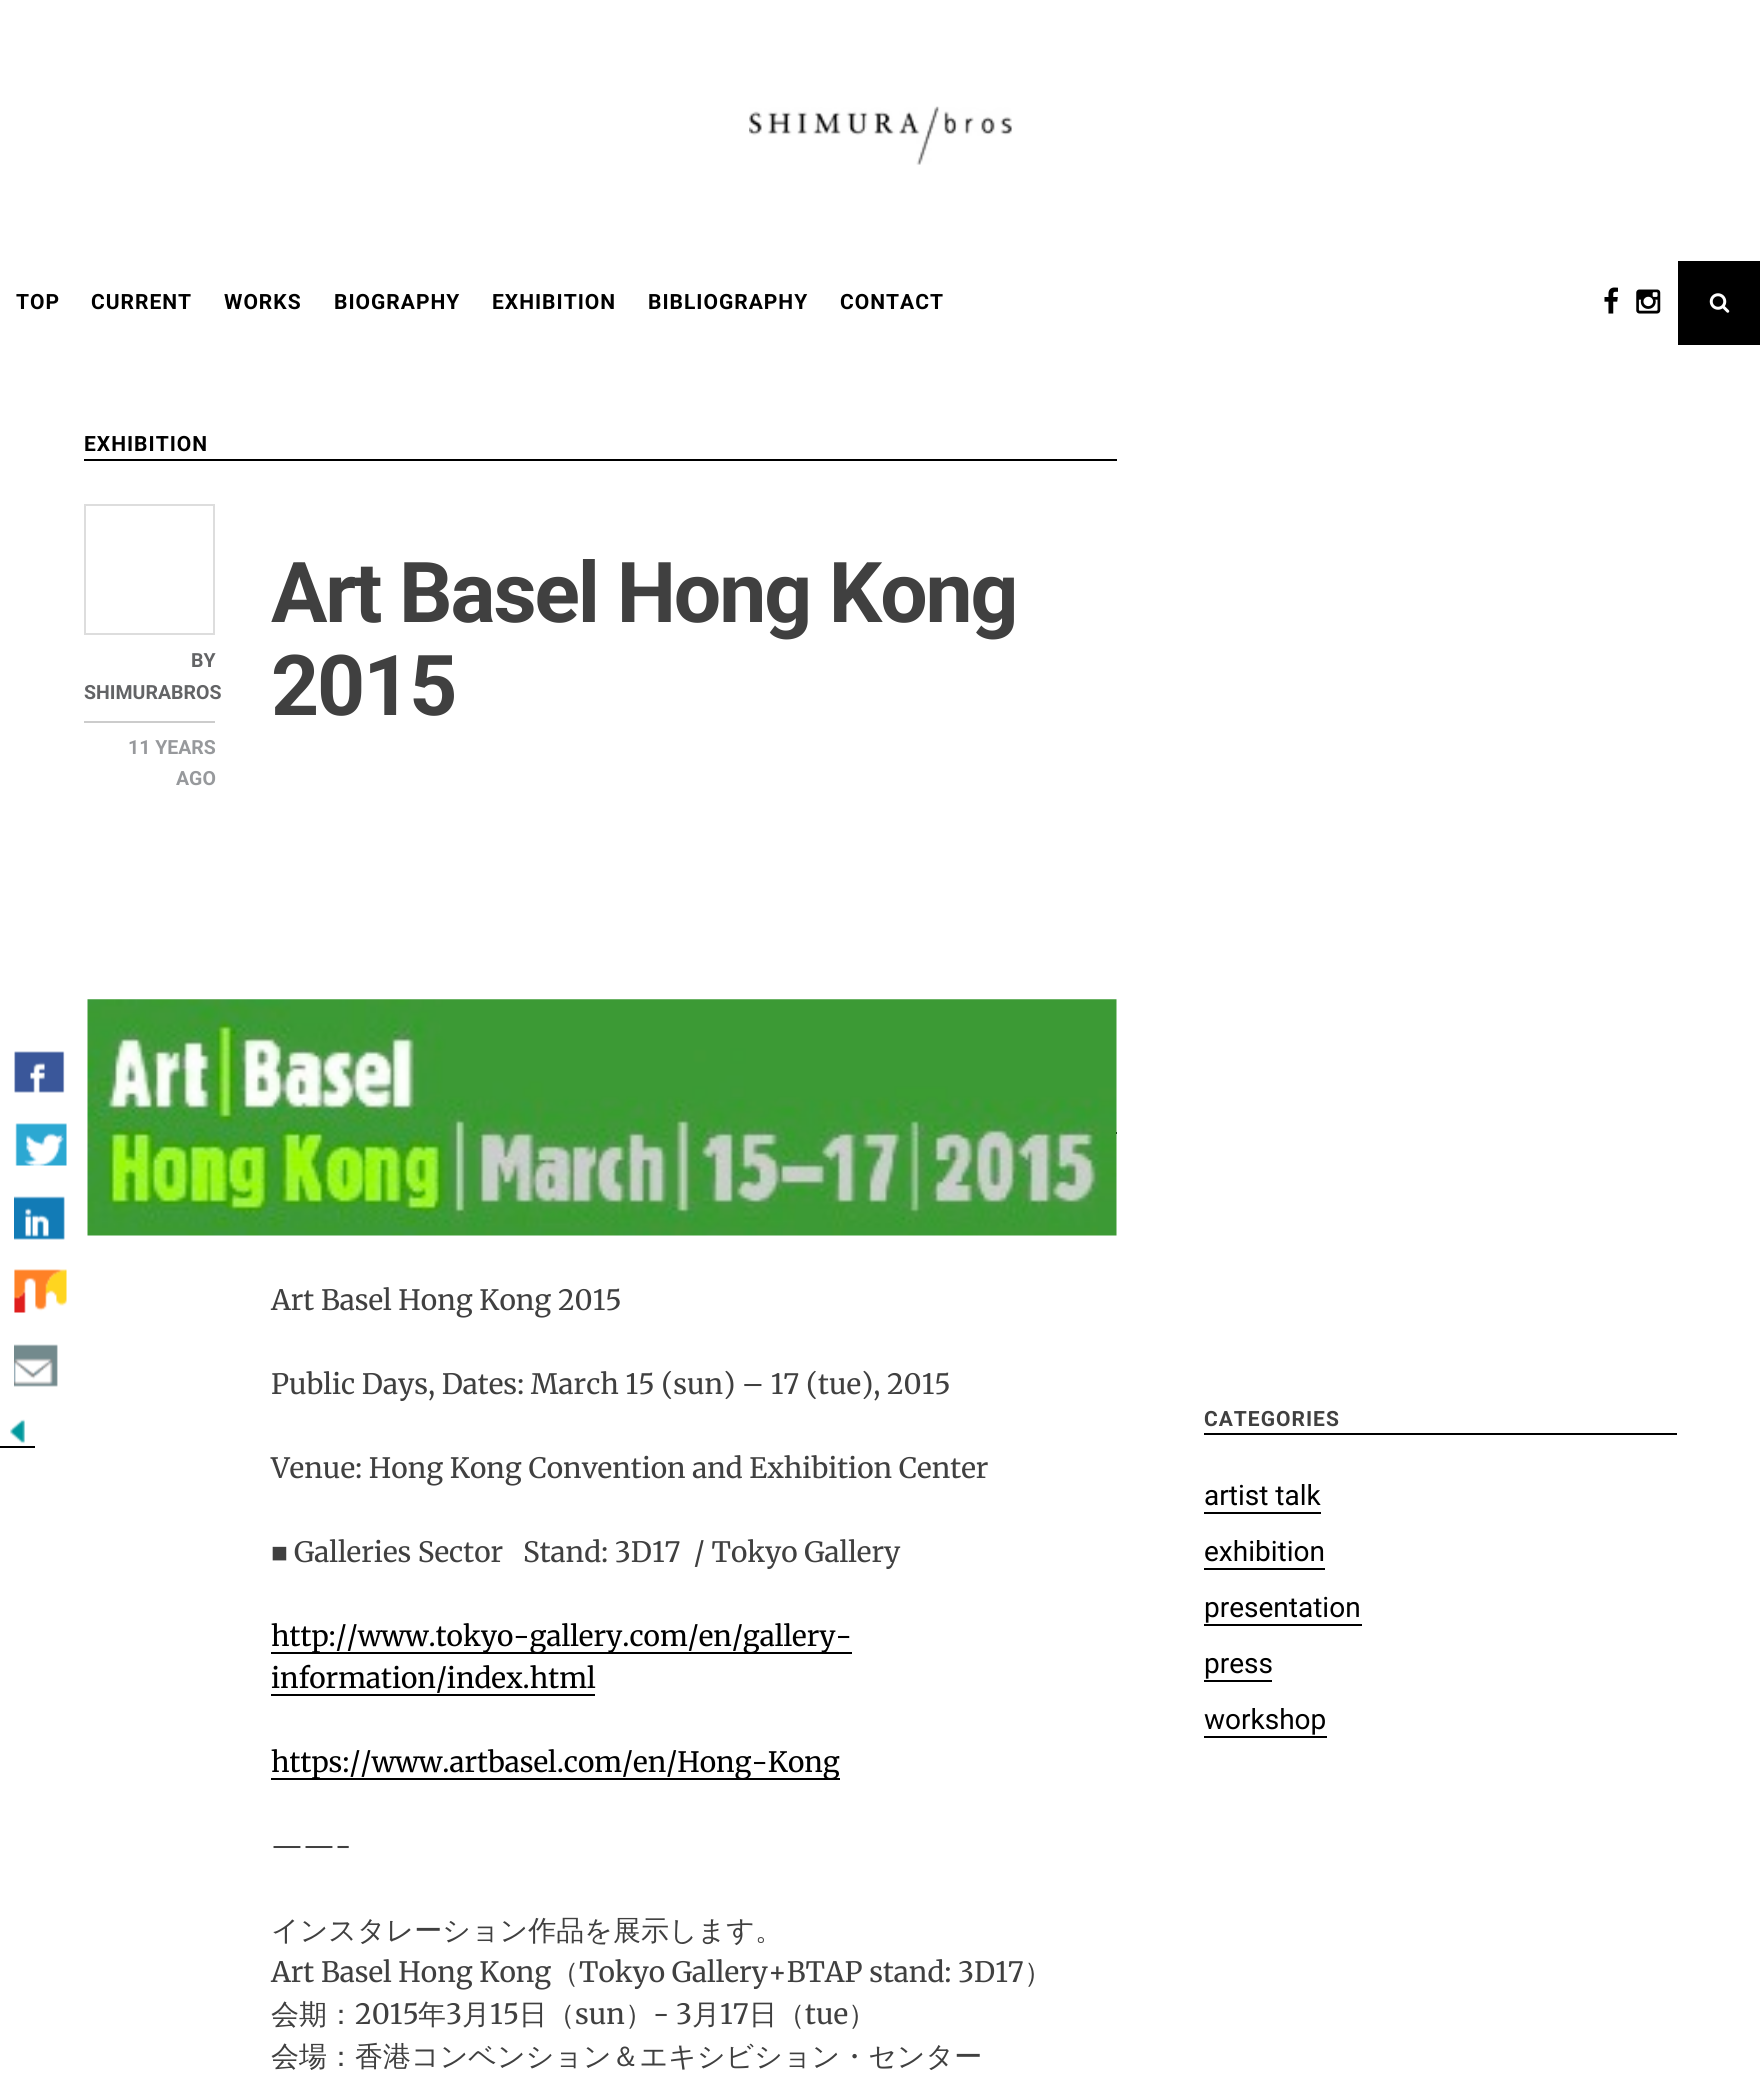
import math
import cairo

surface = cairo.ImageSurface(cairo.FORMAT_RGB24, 1760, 2078)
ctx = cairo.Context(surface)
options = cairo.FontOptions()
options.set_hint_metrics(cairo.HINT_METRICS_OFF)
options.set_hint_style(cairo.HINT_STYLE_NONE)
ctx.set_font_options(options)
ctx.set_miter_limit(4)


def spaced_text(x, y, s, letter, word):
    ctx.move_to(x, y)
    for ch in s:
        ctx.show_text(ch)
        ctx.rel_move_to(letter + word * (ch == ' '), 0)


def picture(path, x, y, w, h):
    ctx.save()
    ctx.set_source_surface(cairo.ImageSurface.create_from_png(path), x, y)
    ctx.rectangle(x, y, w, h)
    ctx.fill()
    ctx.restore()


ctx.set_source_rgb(1, 1, 1)
ctx.paint()
picture("img1.png", 749, 106, 263, 59)
ctx.select_font_face("Roboto", cairo.FONT_SLANT_NORMAL, cairo.FONT_WEIGHT_BOLD)
ctx.set_font_size(21)
ctx.set_source_rgb(0, 0, 0)
spaced_text(16, 309, "TOP", 1, 0)
spaced_text(91, 309, "CURRENT", 1, 0)
spaced_text(224, 309, "WORKS", 1, 0)
spaced_text(334, 309, "BIOGRAPHY", 1, 0)
spaced_text(492, 309, "EXHIBITION", 1, 0)
spaced_text(648, 309, "BIBLIOGRAPHY", 1, 0)
spaced_text(840, 309, "CONTACT", 1, 0)
picture("img2.png", 1604, 287, 14, 27)
picture("img3.png", 1636, 289, 25, 25)
ctx.rectangle(1678, 261, 82, 84)
ctx.fill()
picture("img4.png", 1709, 293, 21, 20)
ctx.rectangle(84, 459, 1033, 2)
ctx.fill()
spaced_text(84, 451, "EXHIBITION", 1, 0)
ctx.rectangle(85, 505, 129, 129)
ctx.set_source_rgb(0.867, 0.867, 0.867)
ctx.stroke()
ctx.set_font_size(19.5)
ctx.set_source_rgb(0.388, 0.392, 0.4)
ctx.move_to(191, 667)
ctx.show_text("BY")
ctx.move_to(84, 699)
ctx.show_text("SHIMURABROS")
ctx.set_source_rgb(0.8, 0.8, 0.8)
ctx.rectangle(84, 721, 131, 2)
ctx.fill()
ctx.set_source_rgb(0.592, 0.6, 0.612)
ctx.move_to(128, 754)
ctx.show_text("11 YEARS")
ctx.move_to(176, 785)
ctx.show_text("AGO")
ctx.set_font_size(84)
ctx.set_source_rgb(0.251, 0.251, 0.251)
spaced_text(271, 622, "Art Basel Hong Kong", -2.1, 0)
spaced_text(271, 715, "2015", -2.1, 0)
ctx.set_source_rgb(0, 0, 0)
ctx.rectangle(1116, 1132, 1, 2)
ctx.fill()
picture("img5.png", 87, 999, 1030, 237)
ctx.select_font_face("Merriweather")
ctx.set_font_size(28)
ctx.set_source_rgb(0.251, 0.251, 0.251)
ctx.move_to(271, 1310)
ctx.show_text("Art Basel Hong Kong 2015")
ctx.move_to(271, 1394)
ctx.show_text("Public Days, Dates: March 15 (sun) – 17 (tue), 2015")
ctx.move_to(271, 1478)
ctx.show_text("Venue: Hong Kong Convention and Exhibition Center")
ctx.select_font_face("Liberation Serif")
ctx.move_to(271, 1562)
ctx.show_text("■")
ctx.select_font_face("Merriweather")
ctx.move_to(294, 1562)
ctx.show_text("Galleries Sector   Stand: 3D17  / Tokyo Gallery")
ctx.set_source_rgb(0, 0, 0)
ctx.rectangle(271, 1652, 581, 2)
ctx.fill()
ctx.move_to(271, 1646)
ctx.show_text("http://www.tokyo-gallery.com/en/gallery-")
ctx.move_to(271, 1688)
ctx.show_text("information/index.html")
ctx.rectangle(271, 1694, 324, 2)
ctx.fill()
ctx.rectangle(271, 1778, 569, 2)
ctx.fill()
ctx.move_to(271, 1772)
ctx.show_text("https://www.artbasel.com/en/Hong-Kong")
ctx.set_source_rgb(0.251, 0.251, 0.251)
ctx.move_to(271, 1856)
ctx.show_text("——-")
ctx.select_font_face("WenQuanYi Zen Hei Medium")
ctx.move_to(271, 1940)
ctx.show_text("インスタレーション作品を展示します。")
ctx.select_font_face("Merriweather")
ctx.move_to(271, 1982)
ctx.show_text("Art Basel Hong Kong")
ctx.select_font_face("WenQuanYi Zen Hei Medium")
ctx.move_to(551, 1982)
ctx.show_text("（")
ctx.select_font_face("Merriweather")
ctx.move_to(579, 1982)
ctx.show_text("Tokyo Gallery+BTAP stand: 3D17")
ctx.select_font_face("WenQuanYi Zen Hei Medium")
ctx.move_to(1024, 1982)
ctx.show_text("）")
ctx.move_to(271, 2024)
ctx.show_text("会期：")
ctx.select_font_face("Merriweather")
ctx.move_to(355, 2024)
ctx.show_text("2015")
ctx.select_font_face("WenQuanYi Zen Hei Medium")
ctx.move_to(418, 2024)
ctx.show_text("年")
ctx.select_font_face("Merriweather")
ctx.move_to(446, 2024)
ctx.show_text("3")
ctx.select_font_face("WenQuanYi Zen Hei Medium")
ctx.move_to(462, 2024)
ctx.show_text("月")
ctx.select_font_face("Merriweather")
ctx.move_to(490, 2024)
ctx.show_text("15")
ctx.select_font_face("WenQuanYi Zen Hei Medium")
ctx.move_to(519, 2024)
ctx.show_text("日（")
ctx.select_font_face("Merriweather")
ctx.move_to(575, 2024)
ctx.show_text("sun")
ctx.select_font_face("WenQuanYi Zen Hei Medium")
ctx.move_to(625, 2024)
ctx.show_text("）")
ctx.select_font_face("Merriweather")
ctx.move_to(653, 2024)
ctx.show_text("- 3")
ctx.select_font_face("WenQuanYi Zen Hei Medium")
ctx.move_to(692, 2024)
ctx.show_text("月")
ctx.select_font_face("Merriweather")
ctx.move_to(720, 2024)
ctx.show_text("17")
ctx.select_font_face("WenQuanYi Zen Hei Medium")
ctx.move_to(749, 2024)
ctx.show_text("日（")
ctx.select_font_face("Merriweather")
ctx.move_to(805, 2024)
ctx.show_text("tue")
ctx.select_font_face("WenQuanYi Zen Hei Medium")
ctx.move_to(848, 2024)
ctx.show_text("）")
ctx.move_to(271, 2066)
ctx.show_text("会場：香港コンベンション＆エキシビション・センター")
ctx.set_source_rgb(0, 0, 0)
ctx.rectangle(1204, 1433, 473, 2)
ctx.fill()
ctx.select_font_face("Roboto", cairo.FONT_SLANT_NORMAL, cairo.FONT_WEIGHT_BOLD)
ctx.set_font_size(21)
ctx.set_source_rgb(0.251, 0.251, 0.251)
spaced_text(1204, 1426, "CATEGORIES", 1, 0)
ctx.select_font_face("Roboto")
ctx.set_font_size(28)
ctx.set_source_rgb(0, 0, 0)
ctx.move_to(1204, 1505)
ctx.show_text("artist talk")
ctx.rectangle(1204, 1512, 117, 2)
ctx.fill()
ctx.move_to(1204, 1561)
ctx.show_text("exhibition")
ctx.rectangle(1204, 1568, 121, 2)
ctx.fill()
ctx.move_to(1204, 1617)
ctx.show_text("presentation")
ctx.rectangle(1204, 1624, 158, 2)
ctx.fill()
ctx.move_to(1204, 1673)
ctx.show_text("press")
ctx.rectangle(1204, 1680, 68, 2)
ctx.fill()
ctx.move_to(1204, 1729)
ctx.show_text("workshop")
ctx.rectangle(1204, 1736, 123, 2)
ctx.fill()
picture("img6.png", 14, 1051, 51, 42)
picture("img7.png", 15, 1123, 52, 43)
picture("img8.png", 14, 1196, 51, 44)
picture("img9.png", 14, 1269, 53, 44)
picture("img10.png", 14, 1344, 44, 43)
picture("img11.png", 10, 1419, 15, 25)
ctx.rectangle(0, 1446, 35, 2)
ctx.fill()
surface.write_to_png("page.png")
